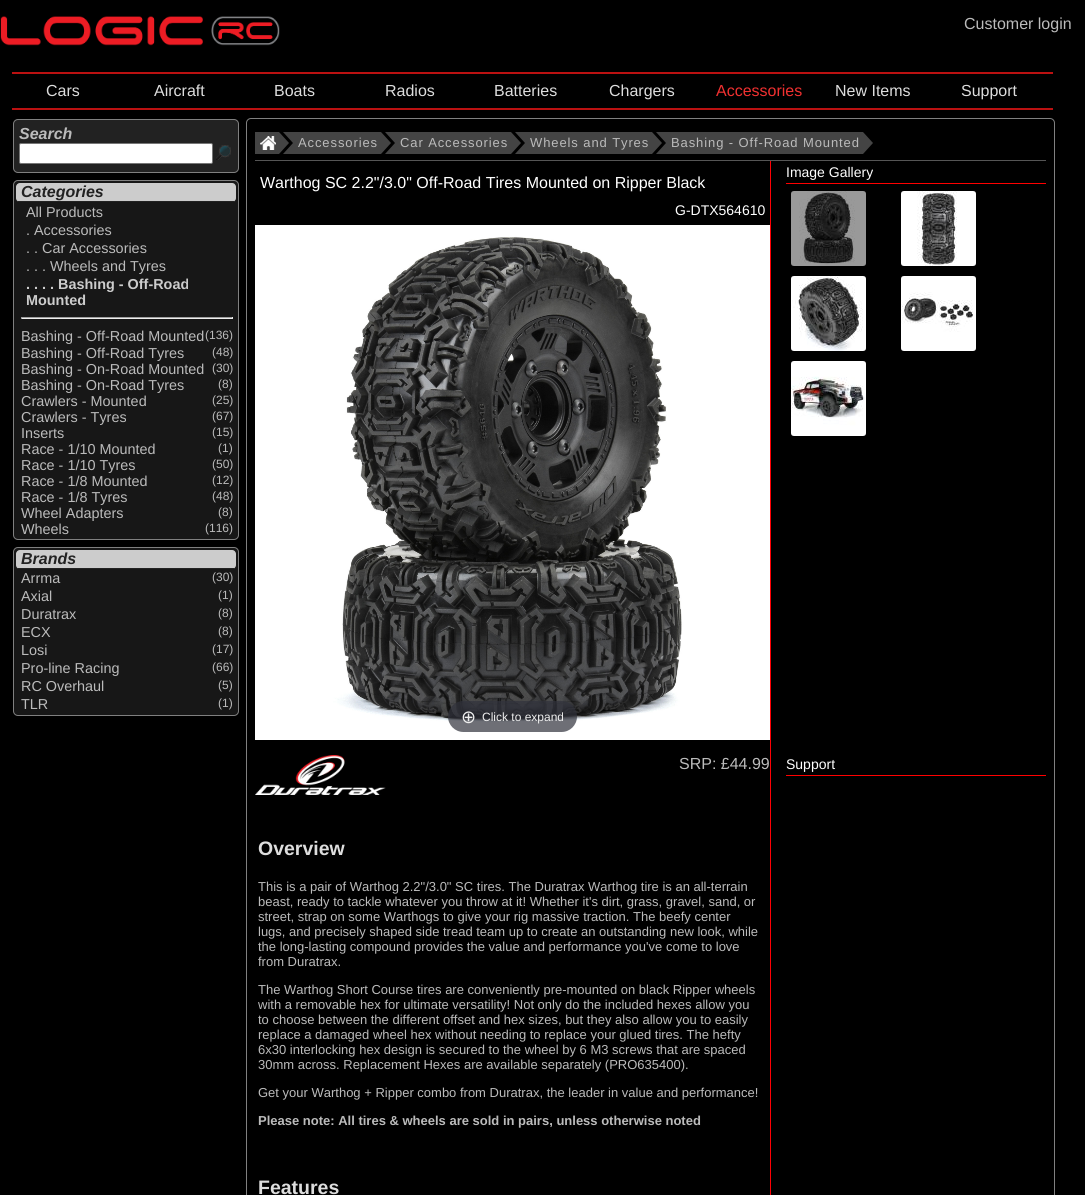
import math
import cairo

surface = cairo.ImageSurface(cairo.FORMAT_RGB24, 1085, 1195)
ctx = cairo.Context(surface)
options = cairo.FontOptions()
options.set_hint_metrics(cairo.HINT_METRICS_OFF)
options.set_hint_style(cairo.HINT_STYLE_NONE)
ctx.set_font_options(options)
ctx.set_miter_limit(4)


def spaced_text(x, y, s, letter, word):
    ctx.move_to(x, y)
    for ch in s:
        ctx.show_text(ch)
        ctx.rel_move_to(letter + word * (ch == ' '), 0)


def round_rect(x, y, w, h, r):
    ctx.new_sub_path()
    for i, (u, v) in enumerate([(x + w - r, y + h - r), (x + r, y + h - r), (x + r, y + r), (x + w - r, y + r)]):
        ctx.arc(u, v, r, i * math.pi / 2, (i + 1) * math.pi / 2)
    ctx.close_path()


def picture(path, x, y, w, h):
    ctx.save()
    ctx.set_source_surface(cairo.ImageSurface.create_from_png(path), x, y)
    ctx.rectangle(x, y, w, h)
    ctx.fill()
    ctx.restore()


ctx.set_source_rgb(0, 0, 0)
ctx.paint()
picture("img1.png", 0, 16, 280, 30)
ctx.select_font_face("Liberation Sans")
ctx.set_font_size(16)
ctx.set_source_rgb(0.733, 0.733, 0.733)
ctx.move_to(964, 29)
ctx.show_text("Customer login")
ctx.set_source_rgb(0.733, 0.067, 0.067)
ctx.rectangle(12, 72, 1041, 2)
ctx.fill()
ctx.rectangle(12, 108, 1041, 2)
ctx.fill()
ctx.set_source_rgb(0.867, 0.867, 0.867)
ctx.move_to(46, 96)
ctx.show_text("Cars")
ctx.move_to(154, 96)
ctx.show_text("Aircraft")
ctx.move_to(274, 96)
ctx.show_text("Boats")
ctx.move_to(385, 96)
ctx.show_text("Radios")
ctx.move_to(494, 96)
ctx.show_text("Batteries")
ctx.move_to(609, 96)
ctx.show_text("Chargers")
ctx.set_source_rgb(0.941, 0.188, 0.188)
ctx.move_to(716, 96)
ctx.show_text("Accessories")
ctx.set_source_rgb(0.867, 0.867, 0.867)
ctx.move_to(835, 96)
ctx.show_text("New Items")
ctx.move_to(961, 96)
ctx.show_text("Support")
ctx.set_source_rgb(0.133, 0.133, 0.133)
round_rect(13.5, 119.5, 225, 53, 4.5)
ctx.fill_preserve()
ctx.set_source_rgb(0.502, 0.502, 0.502)
ctx.set_line_width(1)
ctx.stroke()
ctx.select_font_face("Liberation Sans", cairo.FONT_SLANT_ITALIC, cairo.FONT_WEIGHT_BOLD)
ctx.set_source_rgb(0.733, 0.733, 0.733)
ctx.move_to(19, 139)
ctx.show_text("Search")
ctx.set_source_rgb(1, 1, 1)
round_rect(19.5, 143.5, 193, 20, 1.5)
ctx.fill_preserve()
ctx.set_source_rgb(0.463, 0.463, 0.463)
ctx.stroke()
picture("img2.png", 216, 145, 15, 15)
ctx.set_source_rgb(0.09, 0.09, 0.09)
round_rect(13.5, 180.5, 225, 359, 4.5)
ctx.fill_preserve()
ctx.set_source_rgb(0.502, 0.502, 0.502)
ctx.stroke()
ctx.set_source_rgb(0.8, 0.8, 0.8)
round_rect(16, 183, 220, 19, 4)
ctx.fill()
ctx.set_source_rgb(0.133, 0.133, 0.133)
ctx.rectangle(18, 201, 216, 1)
ctx.fill()
ctx.move_to(21, 197)
ctx.show_text("Categories")
ctx.select_font_face("Liberation Sans")
ctx.set_font_size(14.4)
ctx.set_source_rgb(0.733, 0.733, 0.733)
ctx.move_to(26, 217)
ctx.show_text("All Products")
ctx.move_to(26, 235)
ctx.show_text(". Accessories")
ctx.move_to(26, 253)
ctx.show_text(". . Car Accessories")
ctx.move_to(26, 271)
ctx.show_text(". . . Wheels and Tyres")
ctx.select_font_face("Liberation Sans", cairo.FONT_SLANT_NORMAL, cairo.FONT_WEIGHT_BOLD)
ctx.set_source_rgb(0.8, 0.8, 0.8)
ctx.move_to(26, 289)
ctx.show_text(". . . . Bashing - Off-Road")
ctx.move_to(26, 305)
ctx.show_text("Mounted")
ctx.set_source_rgb(0.624, 0.624, 0.624)
ctx.rectangle(21, 317, 212, 1)
ctx.fill()
ctx.set_source_rgb(0.933, 0.933, 0.933)
ctx.rectangle(232, 317, 1, 2)
ctx.fill()
ctx.rectangle(21, 318, 212, 1)
ctx.fill()
ctx.set_source_rgb(0.624, 0.624, 0.624)
ctx.rectangle(21, 317, 1, 2)
ctx.fill()
ctx.select_font_face("Liberation Sans")
ctx.set_source_rgb(0.733, 0.733, 0.733)
ctx.move_to(21, 341)
ctx.show_text("Bashing - Off-Road Mounted")
ctx.set_font_size(12)
ctx.move_to(205, 339)
ctx.show_text("(136)")
ctx.set_font_size(14.4)
ctx.move_to(21, 358)
ctx.show_text("Bashing - Off-Road Tyres")
ctx.set_font_size(12)
ctx.move_to(212, 356)
ctx.show_text("(48)")
ctx.set_font_size(14.4)
ctx.move_to(21, 374)
ctx.show_text("Bashing - On-Road Mounted")
ctx.set_font_size(12)
ctx.move_to(212, 372)
ctx.show_text("(30)")
ctx.set_font_size(14.4)
ctx.move_to(21, 390)
ctx.show_text("Bashing - On-Road Tyres")
ctx.set_font_size(12)
ctx.move_to(218, 388)
ctx.show_text("(8)")
ctx.set_font_size(14.4)
ctx.move_to(21, 406)
ctx.show_text("Crawlers - Mounted")
ctx.set_font_size(12)
ctx.move_to(212, 404)
ctx.show_text("(25)")
ctx.set_font_size(14.4)
ctx.move_to(21, 422)
ctx.show_text("Crawlers - Tyres")
ctx.set_font_size(12)
ctx.move_to(212, 420)
ctx.show_text("(67)")
ctx.set_font_size(14.4)
ctx.move_to(21, 438)
ctx.show_text("Inserts")
ctx.set_font_size(12)
ctx.move_to(212, 436)
ctx.show_text("(15)")
ctx.set_font_size(14.4)
ctx.move_to(21, 454)
ctx.show_text("Race - 1/10 Mounted")
ctx.set_font_size(12)
ctx.move_to(218, 452)
ctx.show_text("(1)")
ctx.set_font_size(14.4)
ctx.move_to(21, 470)
ctx.show_text("Race - 1/10 Tyres")
ctx.set_font_size(12)
ctx.move_to(212, 468)
ctx.show_text("(50)")
ctx.set_font_size(14.4)
ctx.move_to(21, 486)
ctx.show_text("Race - 1/8 Mounted")
ctx.set_font_size(12)
ctx.move_to(212, 484)
ctx.show_text("(12)")
ctx.set_font_size(14.4)
ctx.move_to(21, 502)
ctx.show_text("Race - 1/8 Tyres")
ctx.set_font_size(12)
ctx.move_to(212, 500)
ctx.show_text("(48)")
ctx.set_font_size(14.4)
ctx.move_to(21, 518)
ctx.show_text("Wheel Adapters")
ctx.set_font_size(12)
ctx.move_to(218, 516)
ctx.show_text("(8)")
ctx.set_font_size(14.4)
ctx.move_to(21, 534)
ctx.show_text("Wheels")
ctx.set_font_size(12)
ctx.move_to(205, 532)
ctx.show_text("(116)")
ctx.set_source_rgb(0.09, 0.09, 0.09)
round_rect(13.5, 547.5, 225, 168, 4.5)
ctx.fill_preserve()
ctx.set_source_rgb(0.502, 0.502, 0.502)
ctx.stroke()
ctx.set_source_rgb(0.8, 0.8, 0.8)
round_rect(16, 550, 220, 19, 4)
ctx.fill()
ctx.set_source_rgb(0.133, 0.133, 0.133)
ctx.rectangle(18, 568, 216, 1)
ctx.fill()
ctx.select_font_face("Liberation Sans", cairo.FONT_SLANT_ITALIC, cairo.FONT_WEIGHT_BOLD)
ctx.set_font_size(16)
ctx.move_to(21, 564)
ctx.show_text("Brands")
ctx.select_font_face("Liberation Sans")
ctx.set_font_size(14.4)
ctx.set_source_rgb(0.733, 0.733, 0.733)
ctx.move_to(21, 583)
ctx.show_text("Arrma")
ctx.set_font_size(12)
ctx.move_to(212, 581)
ctx.show_text("(30)")
ctx.set_font_size(14.4)
ctx.move_to(21, 601)
ctx.show_text("Axial")
ctx.set_font_size(12)
ctx.move_to(218, 599)
ctx.show_text("(1)")
ctx.set_font_size(14.4)
ctx.move_to(21, 619)
ctx.show_text("Duratrax")
ctx.set_font_size(12)
ctx.move_to(218, 617)
ctx.show_text("(8)")
ctx.set_font_size(14.4)
ctx.move_to(21, 637)
ctx.show_text("ECX")
ctx.set_font_size(12)
ctx.move_to(218, 635)
ctx.show_text("(8)")
ctx.set_font_size(14.4)
ctx.move_to(21, 655)
ctx.show_text("Losi")
ctx.set_font_size(12)
ctx.move_to(212, 653)
ctx.show_text("(17)")
ctx.set_font_size(14.4)
ctx.move_to(21, 673)
ctx.show_text("Pro-line Racing")
ctx.set_font_size(12)
ctx.move_to(212, 671)
ctx.show_text("(66)")
ctx.set_font_size(14.4)
ctx.move_to(21, 691)
ctx.show_text("RC Overhaul")
ctx.set_font_size(12)
ctx.move_to(218, 689)
ctx.show_text("(5)")
ctx.set_font_size(14.4)
ctx.move_to(21, 709)
ctx.show_text("TLR")
ctx.set_font_size(12)
ctx.move_to(218, 707)
ctx.show_text("(1)")
round_rect(246.5, 118.5, 808, 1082, 4.5)
ctx.set_source_rgb(0.502, 0.502, 0.502)
ctx.stroke()
ctx.set_source_rgb(0.267, 0.267, 0.267)
ctx.rectangle(255, 132, 24, 22)
ctx.fill()
picture("img3.png", 260, 136, 16, 14)
ctx.new_path()
ctx.move_to(279, 154)
ctx.line_to(279, 132)
ctx.line_to(289, 143)
ctx.close_path()
ctx.fill()
ctx.rectangle(293, 132, 88, 22)
ctx.fill()
ctx.new_path()
ctx.move_to(283, 132)
ctx.line_to(293, 132)
ctx.line_to(293, 143)
ctx.close_path()
ctx.move_to(293, 154)
ctx.line_to(283, 154)
ctx.line_to(293, 143)
ctx.close_path()
ctx.fill()
ctx.set_font_size(13)
ctx.set_source_rgb(0.733, 0.733, 0.733)
spaced_text(298, 147, "Accessories", 0.9, 0)
ctx.set_source_rgb(0.267, 0.267, 0.267)
ctx.new_path()
ctx.move_to(381, 154)
ctx.line_to(381, 132)
ctx.line_to(391, 143)
ctx.close_path()
ctx.fill()
ctx.rectangle(395, 132, 116, 22)
ctx.fill()
ctx.new_path()
ctx.move_to(385, 132)
ctx.line_to(395, 132)
ctx.line_to(395, 143)
ctx.close_path()
ctx.move_to(395, 154)
ctx.line_to(385, 154)
ctx.line_to(395, 143)
ctx.close_path()
ctx.fill()
ctx.set_source_rgb(0.733, 0.733, 0.733)
spaced_text(400, 147, "Car Accessories", 0.9, 0)
ctx.set_source_rgb(0.267, 0.267, 0.267)
ctx.new_path()
ctx.move_to(511, 154)
ctx.line_to(511, 132)
ctx.line_to(521, 143)
ctx.close_path()
ctx.fill()
ctx.rectangle(525, 132, 127, 22)
ctx.fill()
ctx.new_path()
ctx.move_to(515, 132)
ctx.line_to(525, 132)
ctx.line_to(525, 143)
ctx.close_path()
ctx.move_to(525, 154)
ctx.line_to(515, 154)
ctx.line_to(525, 143)
ctx.close_path()
ctx.fill()
ctx.set_source_rgb(0.733, 0.733, 0.733)
spaced_text(530, 147, "Wheels and Tyres", 0.9, 0)
ctx.set_source_rgb(0.267, 0.267, 0.267)
ctx.new_path()
ctx.move_to(652, 154)
ctx.line_to(652, 132)
ctx.line_to(662, 143)
ctx.close_path()
ctx.fill()
ctx.rectangle(666, 132, 197, 22)
ctx.fill()
ctx.new_path()
ctx.move_to(656, 132)
ctx.line_to(666, 132)
ctx.line_to(666, 143)
ctx.close_path()
ctx.move_to(666, 154)
ctx.line_to(656, 154)
ctx.line_to(666, 143)
ctx.close_path()
ctx.fill()
ctx.set_source_rgb(0.733, 0.733, 0.733)
spaced_text(671, 147, "Bashing - Off-Road Mounted", 0.9, 0)
ctx.set_source_rgb(0.267, 0.267, 0.267)
ctx.new_path()
ctx.move_to(863, 154)
ctx.line_to(863, 132)
ctx.line_to(873, 143)
ctx.close_path()
ctx.fill()
ctx.set_source_rgb(0.333, 0.333, 0.333)
ctx.rectangle(255, 160, 791, 1)
ctx.fill()
ctx.set_source_rgb(1, 0, 0)
ctx.rectangle(786, 183, 260, 1)
ctx.fill()
ctx.set_font_size(14)
ctx.set_source_rgb(1, 1, 1)
ctx.move_to(786, 177)
ctx.show_text("Image Gallery")
picture("img4.png", 791, 191, 75, 75)
picture("img5.png", 901, 191, 75, 75)
picture("img6.png", 791, 276, 75, 75)
picture("img7.png", 901, 276, 75, 75)
picture("img8.png", 791, 361, 75, 75)
ctx.set_source_rgb(1, 0, 0.016)
ctx.rectangle(770, 161, 1, 1034)
ctx.fill()
ctx.set_font_size(16)
ctx.set_source_rgb(1, 1, 1)
ctx.move_to(260, 188)
ctx.show_text("Warthog SC 2.2\"/3.0\" Off-Road Tires Mounted on Ripper Black")
ctx.set_font_size(14)
ctx.move_to(675, 215)
ctx.show_text("G-DTX564610")
picture("img9.png", 255, 225, 515, 515)
ctx.set_source_rgba(0.192, 0.2, 0.239, 0.7)
round_rect(448, 701, 129, 31, 15.5)
ctx.fill()
ctx.select_font_face("DejaVu Sans")
ctx.set_font_size(18)
ctx.set_source_rgb(0.933, 0.933, 0.933)
ctx.move_to(461, 723)
ctx.show_text("⊕")
ctx.select_font_face("Liberation Sans")
ctx.set_font_size(12)
ctx.move_to(482, 721)
ctx.show_text("Click to expand")
picture("img10.png", 255, 755, 131, 40)
ctx.set_font_size(16)
ctx.set_source_rgb(0.733, 0.733, 0.733)
ctx.move_to(679, 769)
ctx.show_text("SRP: £44.99")
ctx.select_font_face("Liberation Sans", cairo.FONT_SLANT_NORMAL, cairo.FONT_WEIGHT_BOLD)
ctx.set_font_size(19.5)
ctx.set_source_rgb(0.867, 0.867, 0.867)
ctx.move_to(258, 855)
ctx.show_text("Overview")
ctx.select_font_face("Liberation Sans")
ctx.set_font_size(13)
ctx.set_source_rgb(0.733, 0.733, 0.733)
ctx.move_to(258, 891)
ctx.show_text("This is a pair of Warthog 2.2\"/3.0\" SC tires. The Duratrax Warthog tire is an all-terrain")
ctx.move_to(258, 906)
ctx.show_text("beast, ready to tackle whatever you throw at it! Whether it's dirt, grass, gravel, sand, or")
ctx.move_to(258, 921)
ctx.show_text("street, strap on some Warthogs to give your rig massive traction. The beefy center")
ctx.move_to(258, 936)
ctx.show_text("lugs, and precisely shaped side tread team up to create an outstanding new look, while")
ctx.move_to(258, 951)
ctx.show_text("the long-lasting compound provides the value and performance you've come to love")
ctx.move_to(258, 966)
ctx.show_text("from Duratrax.")
ctx.move_to(258, 994)
ctx.show_text("The Warthog Short Course tires are conveniently pre-mounted on black Ripper wheels")
ctx.move_to(258, 1009)
ctx.show_text("with a removable hex for ultimate versatility! Not only do the included hexes allow you")
ctx.move_to(258, 1024)
ctx.show_text("to choose between the different offset and hex sizes, but they also allow you to easily")
ctx.move_to(258, 1039)
ctx.show_text("replace a damaged wheel hex without needing to replace your glued tires. The hefty")
ctx.move_to(258, 1054)
ctx.show_text("6x30 interlocking hex design is secured to the wheel by 6 M3 screws that are spaced")
ctx.move_to(258, 1069)
ctx.show_text("30mm across. Replacement Hexes are available separately (PRO635400).")
ctx.move_to(258, 1097)
ctx.show_text("Get your Warthog + Ripper combo from Duratrax, the leader in value and performance!")
ctx.select_font_face("Liberation Sans", cairo.FONT_SLANT_NORMAL, cairo.FONT_WEIGHT_BOLD)
ctx.move_to(258, 1125)
ctx.show_text("Please note: All tires & wheels are sold in pairs, unless otherwise noted")
ctx.set_font_size(19.5)
ctx.set_source_rgb(0.867, 0.867, 0.867)
ctx.move_to(258, 1194)
ctx.show_text("Features")
ctx.set_source_rgb(1, 0, 0)
ctx.rectangle(786, 775, 260, 1)
ctx.fill()
ctx.select_font_face("Liberation Sans")
ctx.set_font_size(14)
ctx.set_source_rgb(1, 1, 1)
ctx.move_to(786, 769)
ctx.show_text("Support")
surface.write_to_png("page.png")
